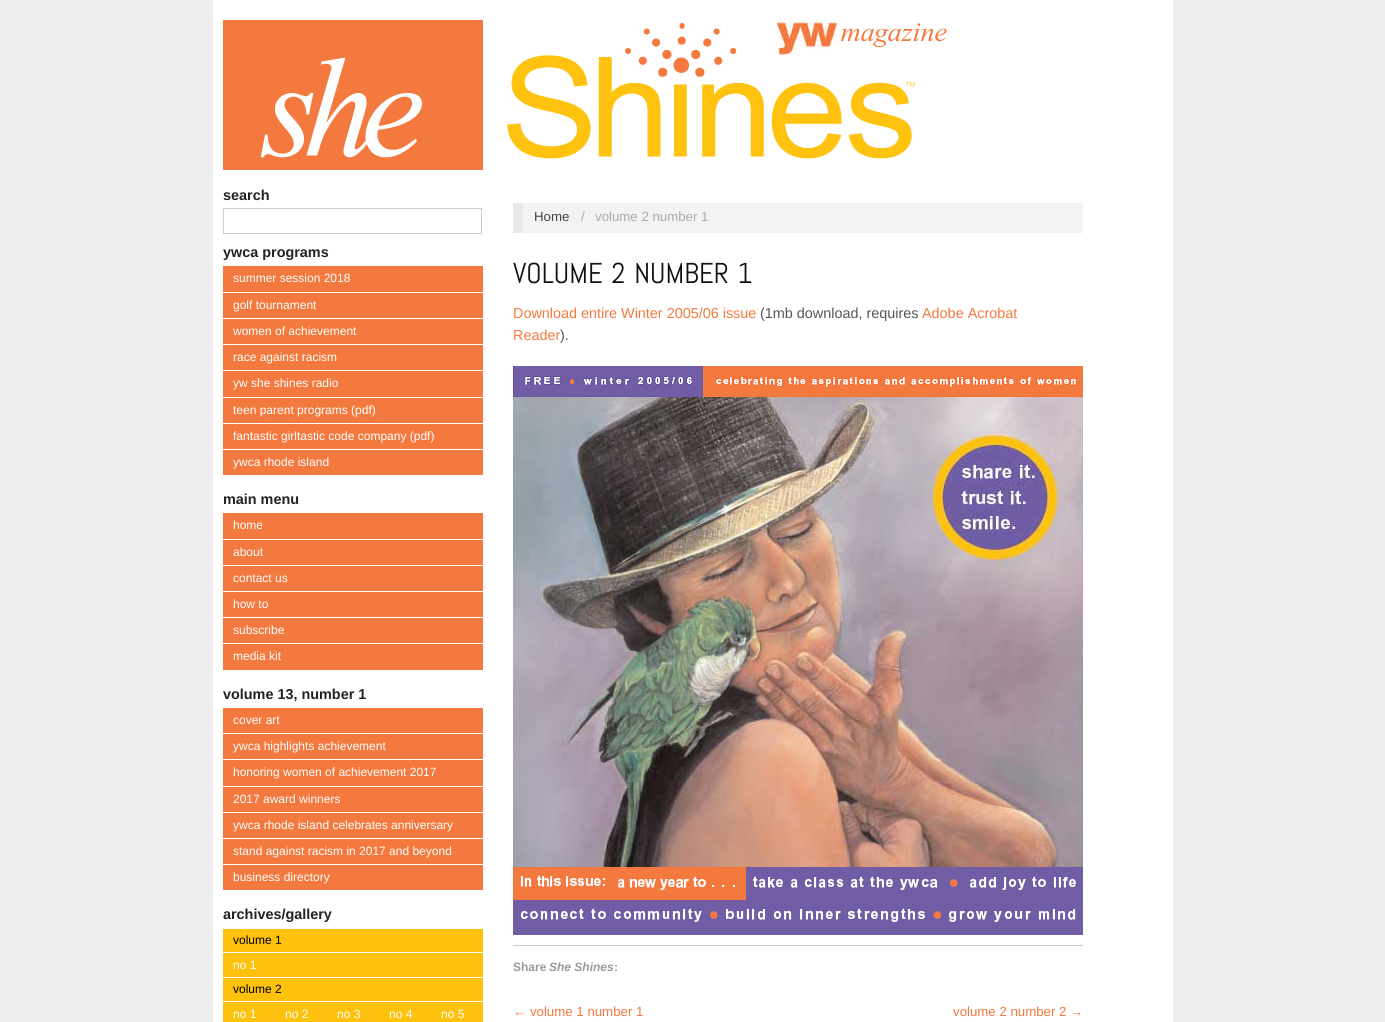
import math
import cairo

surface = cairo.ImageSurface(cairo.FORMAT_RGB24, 1385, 1022)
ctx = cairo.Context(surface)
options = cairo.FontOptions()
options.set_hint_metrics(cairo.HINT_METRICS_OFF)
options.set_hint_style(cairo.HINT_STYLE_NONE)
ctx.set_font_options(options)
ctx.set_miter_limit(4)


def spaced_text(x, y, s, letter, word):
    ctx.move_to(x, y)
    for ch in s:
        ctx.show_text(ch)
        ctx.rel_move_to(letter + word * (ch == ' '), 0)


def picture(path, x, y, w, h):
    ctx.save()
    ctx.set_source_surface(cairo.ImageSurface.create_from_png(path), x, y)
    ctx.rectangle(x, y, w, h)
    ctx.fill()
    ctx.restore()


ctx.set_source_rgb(0.933, 0.933, 0.933)
ctx.paint()
ctx.set_source_rgb(1, 1, 1)
ctx.rectangle(213, 0, 960, 1022)
ctx.fill()
picture("img1.png", 223, 20, 724, 150)
ctx.select_font_face("Liberation Sans", cairo.FONT_SLANT_NORMAL, cairo.FONT_WEIGHT_BOLD)
ctx.set_font_size(14.4)
ctx.set_source_rgb(0.133, 0.133, 0.133)
ctx.move_to(223, 200)
ctx.show_text("search")
ctx.rectangle(223.5, 208.5, 258, 25)
ctx.set_source_rgb(0.8, 0.8, 0.8)
ctx.set_line_width(1)
ctx.stroke()
ctx.set_source_rgb(0.133, 0.133, 0.133)
ctx.move_to(223, 257)
ctx.show_text("ywca programs")
ctx.set_source_rgb(0.953, 0.475, 0.243)
ctx.rectangle(223, 266, 260, 26)
ctx.fill()
ctx.select_font_face("Liberation Sans")
ctx.set_font_size(12)
ctx.set_source_rgb(1, 1, 1)
ctx.move_to(233, 282)
ctx.show_text("summer session 2018")
ctx.set_source_rgb(0.953, 0.475, 0.243)
ctx.rectangle(223, 293, 260, 25)
ctx.fill()
ctx.set_source_rgb(1, 1, 1)
ctx.move_to(233, 309)
ctx.show_text("golf tournament")
ctx.set_source_rgb(0.953, 0.475, 0.243)
ctx.rectangle(223, 319, 260, 25)
ctx.fill()
ctx.set_source_rgb(1, 1, 1)
ctx.move_to(233, 335)
ctx.show_text("women of achievement")
ctx.set_source_rgb(0.953, 0.475, 0.243)
ctx.rectangle(223, 345, 260, 25)
ctx.fill()
ctx.set_source_rgb(1, 1, 1)
ctx.move_to(233, 361)
ctx.show_text("race against racism")
ctx.set_source_rgb(0.953, 0.475, 0.243)
ctx.rectangle(223, 371, 260, 26)
ctx.fill()
ctx.set_source_rgb(1, 1, 1)
ctx.move_to(233, 387)
ctx.show_text("yw she shines radio")
ctx.set_source_rgb(0.953, 0.475, 0.243)
ctx.rectangle(223, 398, 260, 25)
ctx.fill()
ctx.set_source_rgb(1, 1, 1)
ctx.move_to(233, 414)
ctx.show_text("teen parent programs (pdf)")
ctx.set_source_rgb(0.953, 0.475, 0.243)
ctx.rectangle(223, 424, 260, 25)
ctx.fill()
ctx.set_source_rgb(1, 1, 1)
ctx.move_to(233, 440)
ctx.show_text("fantastic girltastic code company (pdf)")
ctx.set_source_rgb(0.953, 0.475, 0.243)
ctx.rectangle(223, 450, 260, 25)
ctx.fill()
ctx.set_source_rgb(1, 1, 1)
ctx.move_to(233, 466)
ctx.show_text("ywca rhode island")
ctx.select_font_face("Liberation Sans", cairo.FONT_SLANT_NORMAL, cairo.FONT_WEIGHT_BOLD)
ctx.set_font_size(14.4)
ctx.set_source_rgb(0.133, 0.133, 0.133)
ctx.move_to(223, 504)
ctx.show_text("main menu")
ctx.set_source_rgb(0.953, 0.475, 0.243)
ctx.rectangle(223, 513, 260, 26)
ctx.fill()
ctx.select_font_face("Liberation Sans")
ctx.set_font_size(12)
ctx.set_source_rgb(1, 1, 1)
ctx.move_to(233, 529)
ctx.show_text("home")
ctx.set_source_rgb(0.953, 0.475, 0.243)
ctx.rectangle(223, 540, 260, 25)
ctx.fill()
ctx.set_source_rgb(1, 1, 1)
ctx.move_to(233, 556)
ctx.show_text("about")
ctx.set_source_rgb(0.953, 0.475, 0.243)
ctx.rectangle(223, 566, 260, 25)
ctx.fill()
ctx.set_source_rgb(1, 1, 1)
ctx.move_to(233, 582)
ctx.show_text("contact us")
ctx.set_source_rgb(0.953, 0.475, 0.243)
ctx.rectangle(223, 592, 260, 25)
ctx.fill()
ctx.set_source_rgb(1, 1, 1)
ctx.move_to(233, 608)
ctx.show_text("how to")
ctx.set_source_rgb(0.953, 0.475, 0.243)
ctx.rectangle(223, 618, 260, 25)
ctx.fill()
ctx.set_source_rgb(1, 1, 1)
ctx.move_to(233, 634)
ctx.show_text("subscribe")
ctx.set_source_rgb(0.953, 0.475, 0.243)
ctx.rectangle(223, 644, 260, 26)
ctx.fill()
ctx.set_source_rgb(1, 1, 1)
ctx.move_to(233, 660)
ctx.show_text("media kit")
ctx.select_font_face("Liberation Sans", cairo.FONT_SLANT_NORMAL, cairo.FONT_WEIGHT_BOLD)
ctx.set_font_size(14.4)
ctx.set_source_rgb(0.133, 0.133, 0.133)
ctx.move_to(223, 699)
ctx.show_text("volume 13, number 1")
ctx.set_source_rgb(0.953, 0.475, 0.243)
ctx.rectangle(223, 708, 260, 25)
ctx.fill()
ctx.select_font_face("Liberation Sans")
ctx.set_font_size(12)
ctx.set_source_rgb(1, 1, 1)
ctx.move_to(233, 724)
ctx.show_text("cover art")
ctx.set_source_rgb(0.953, 0.475, 0.243)
ctx.rectangle(223, 734, 260, 25)
ctx.fill()
ctx.set_source_rgb(1, 1, 1)
ctx.move_to(233, 750)
ctx.show_text("ywca highlights achievement")
ctx.set_source_rgb(0.953, 0.475, 0.243)
ctx.rectangle(223, 760, 260, 26)
ctx.fill()
ctx.set_source_rgb(1, 1, 1)
ctx.move_to(233, 776)
ctx.show_text("honoring women of achievement 2017")
ctx.set_source_rgb(0.953, 0.475, 0.243)
ctx.rectangle(223, 787, 260, 25)
ctx.fill()
ctx.set_source_rgb(1, 1, 1)
ctx.move_to(233, 803)
ctx.show_text("2017 award winners")
ctx.set_source_rgb(0.953, 0.475, 0.243)
ctx.rectangle(223, 813, 260, 25)
ctx.fill()
ctx.set_source_rgb(1, 1, 1)
ctx.move_to(233, 829)
ctx.show_text("ywca rhode island celebrates anniversary")
ctx.set_source_rgb(0.953, 0.475, 0.243)
ctx.rectangle(223, 839, 260, 25)
ctx.fill()
ctx.set_source_rgb(1, 1, 1)
ctx.move_to(233, 855)
ctx.show_text("stand against racism in 2017 and beyond")
ctx.set_source_rgb(0.953, 0.475, 0.243)
ctx.rectangle(223, 865, 260, 25)
ctx.fill()
ctx.set_source_rgb(1, 1, 1)
ctx.move_to(233, 881)
ctx.show_text("business directory")
ctx.select_font_face("Liberation Sans", cairo.FONT_SLANT_NORMAL, cairo.FONT_WEIGHT_BOLD)
ctx.set_font_size(14.4)
ctx.set_source_rgb(0.133, 0.133, 0.133)
ctx.move_to(223, 919)
ctx.show_text("archives/gallery")
ctx.set_source_rgb(0.996, 0.757, 0.051)
ctx.rectangle(223, 929, 260, 23)
ctx.fill()
ctx.select_font_face("Liberation Sans")
ctx.set_font_size(12)
ctx.set_source_rgb(0, 0, 0)
ctx.move_to(233, 944)
ctx.show_text("volume 1")
ctx.set_source_rgb(0.996, 0.757, 0.051)
ctx.rectangle(223, 953, 260, 24)
ctx.fill()
ctx.set_source_rgb(1, 1, 1)
ctx.move_to(233, 969)
ctx.show_text("no 1")
ctx.set_source_rgb(0.996, 0.757, 0.051)
ctx.rectangle(223, 978, 260, 23)
ctx.fill()
ctx.set_source_rgb(0, 0, 0)
ctx.move_to(233, 993)
ctx.show_text("volume 2")
ctx.set_source_rgb(0.996, 0.757, 0.051)
ctx.rectangle(223, 1002, 260, 20)
ctx.fill()
ctx.set_source_rgb(1, 1, 1)
ctx.move_to(233, 1018)
ctx.show_text("no 1")
ctx.move_to(285, 1018)
ctx.show_text("no 2")
ctx.move_to(337, 1018)
ctx.show_text("no 3")
ctx.move_to(389, 1018)
ctx.show_text("no 4")
ctx.move_to(441, 1018)
ctx.show_text("no 5")
ctx.set_source_rgb(0.953, 0.953, 0.953)
ctx.rectangle(523, 203, 560, 30)
ctx.fill()
ctx.set_source_rgb(0.914, 0.914, 0.914)
ctx.rectangle(513, 203, 10, 30)
ctx.fill()
ctx.set_font_size(13.25)
ctx.set_source_rgb(0.267, 0.267, 0.267)
ctx.move_to(534, 221)
ctx.show_text("Home")
ctx.set_source_rgb(0.667, 0.667, 0.667)
ctx.move_to(581, 221)
ctx.show_text("/")
ctx.move_to(595, 221)
ctx.show_text("volume 2 number 1")
ctx.select_font_face("Abel")
ctx.set_font_size(28.75)
ctx.set_source_rgb(0.067, 0.067, 0.067)
spaced_text(513, 283, "VOLUME 2 NUMBER 1", 0, 2)
ctx.select_font_face("Liberation Sans")
ctx.set_font_size(14.4)
ctx.set_source_rgb(0.953, 0.475, 0.243)
ctx.move_to(513, 318)
ctx.show_text("Download entire Winter 2005/06 issue")
ctx.set_source_rgb(0.333, 0.333, 0.333)
ctx.move_to(760, 318)
ctx.show_text("(1mb download, requires")
ctx.set_source_rgb(0.953, 0.475, 0.243)
ctx.move_to(922, 318)
ctx.show_text("Adobe Acrobat")
ctx.move_to(513, 340)
ctx.show_text("Reader")
ctx.set_source_rgb(0.333, 0.333, 0.333)
ctx.move_to(560, 340)
ctx.show_text(").")
picture("img2.png", 513, 366, 570, 31)
picture("img3.png", 513, 397, 570, 470)
picture("img4.png", 513, 867, 570, 68)
ctx.set_source_rgb(0.8, 0.8, 0.8)
ctx.rectangle(513, 945, 570, 1)
ctx.fill()
ctx.select_font_face("Liberation Sans", cairo.FONT_SLANT_NORMAL, cairo.FONT_WEIGHT_BOLD)
ctx.set_font_size(12)
ctx.set_source_rgb(0.6, 0.6, 0.6)
ctx.move_to(513, 971)
ctx.show_text("Share")
ctx.select_font_face("Liberation Sans", cairo.FONT_SLANT_ITALIC, cairo.FONT_WEIGHT_BOLD)
ctx.move_to(549, 971)
ctx.show_text("She Shines")
ctx.select_font_face("Liberation Sans", cairo.FONT_SLANT_NORMAL, cairo.FONT_WEIGHT_BOLD)
ctx.move_to(614, 971)
ctx.show_text(":")
ctx.select_font_face("Liberation Sans")
ctx.set_font_size(13.25)
ctx.set_source_rgb(0.953, 0.475, 0.243)
ctx.move_to(513, 1016)
ctx.show_text("← volume 1 number 1")
ctx.move_to(953, 1016)
ctx.show_text("volume 2 number 2 →")
surface.write_to_png("page.png")
